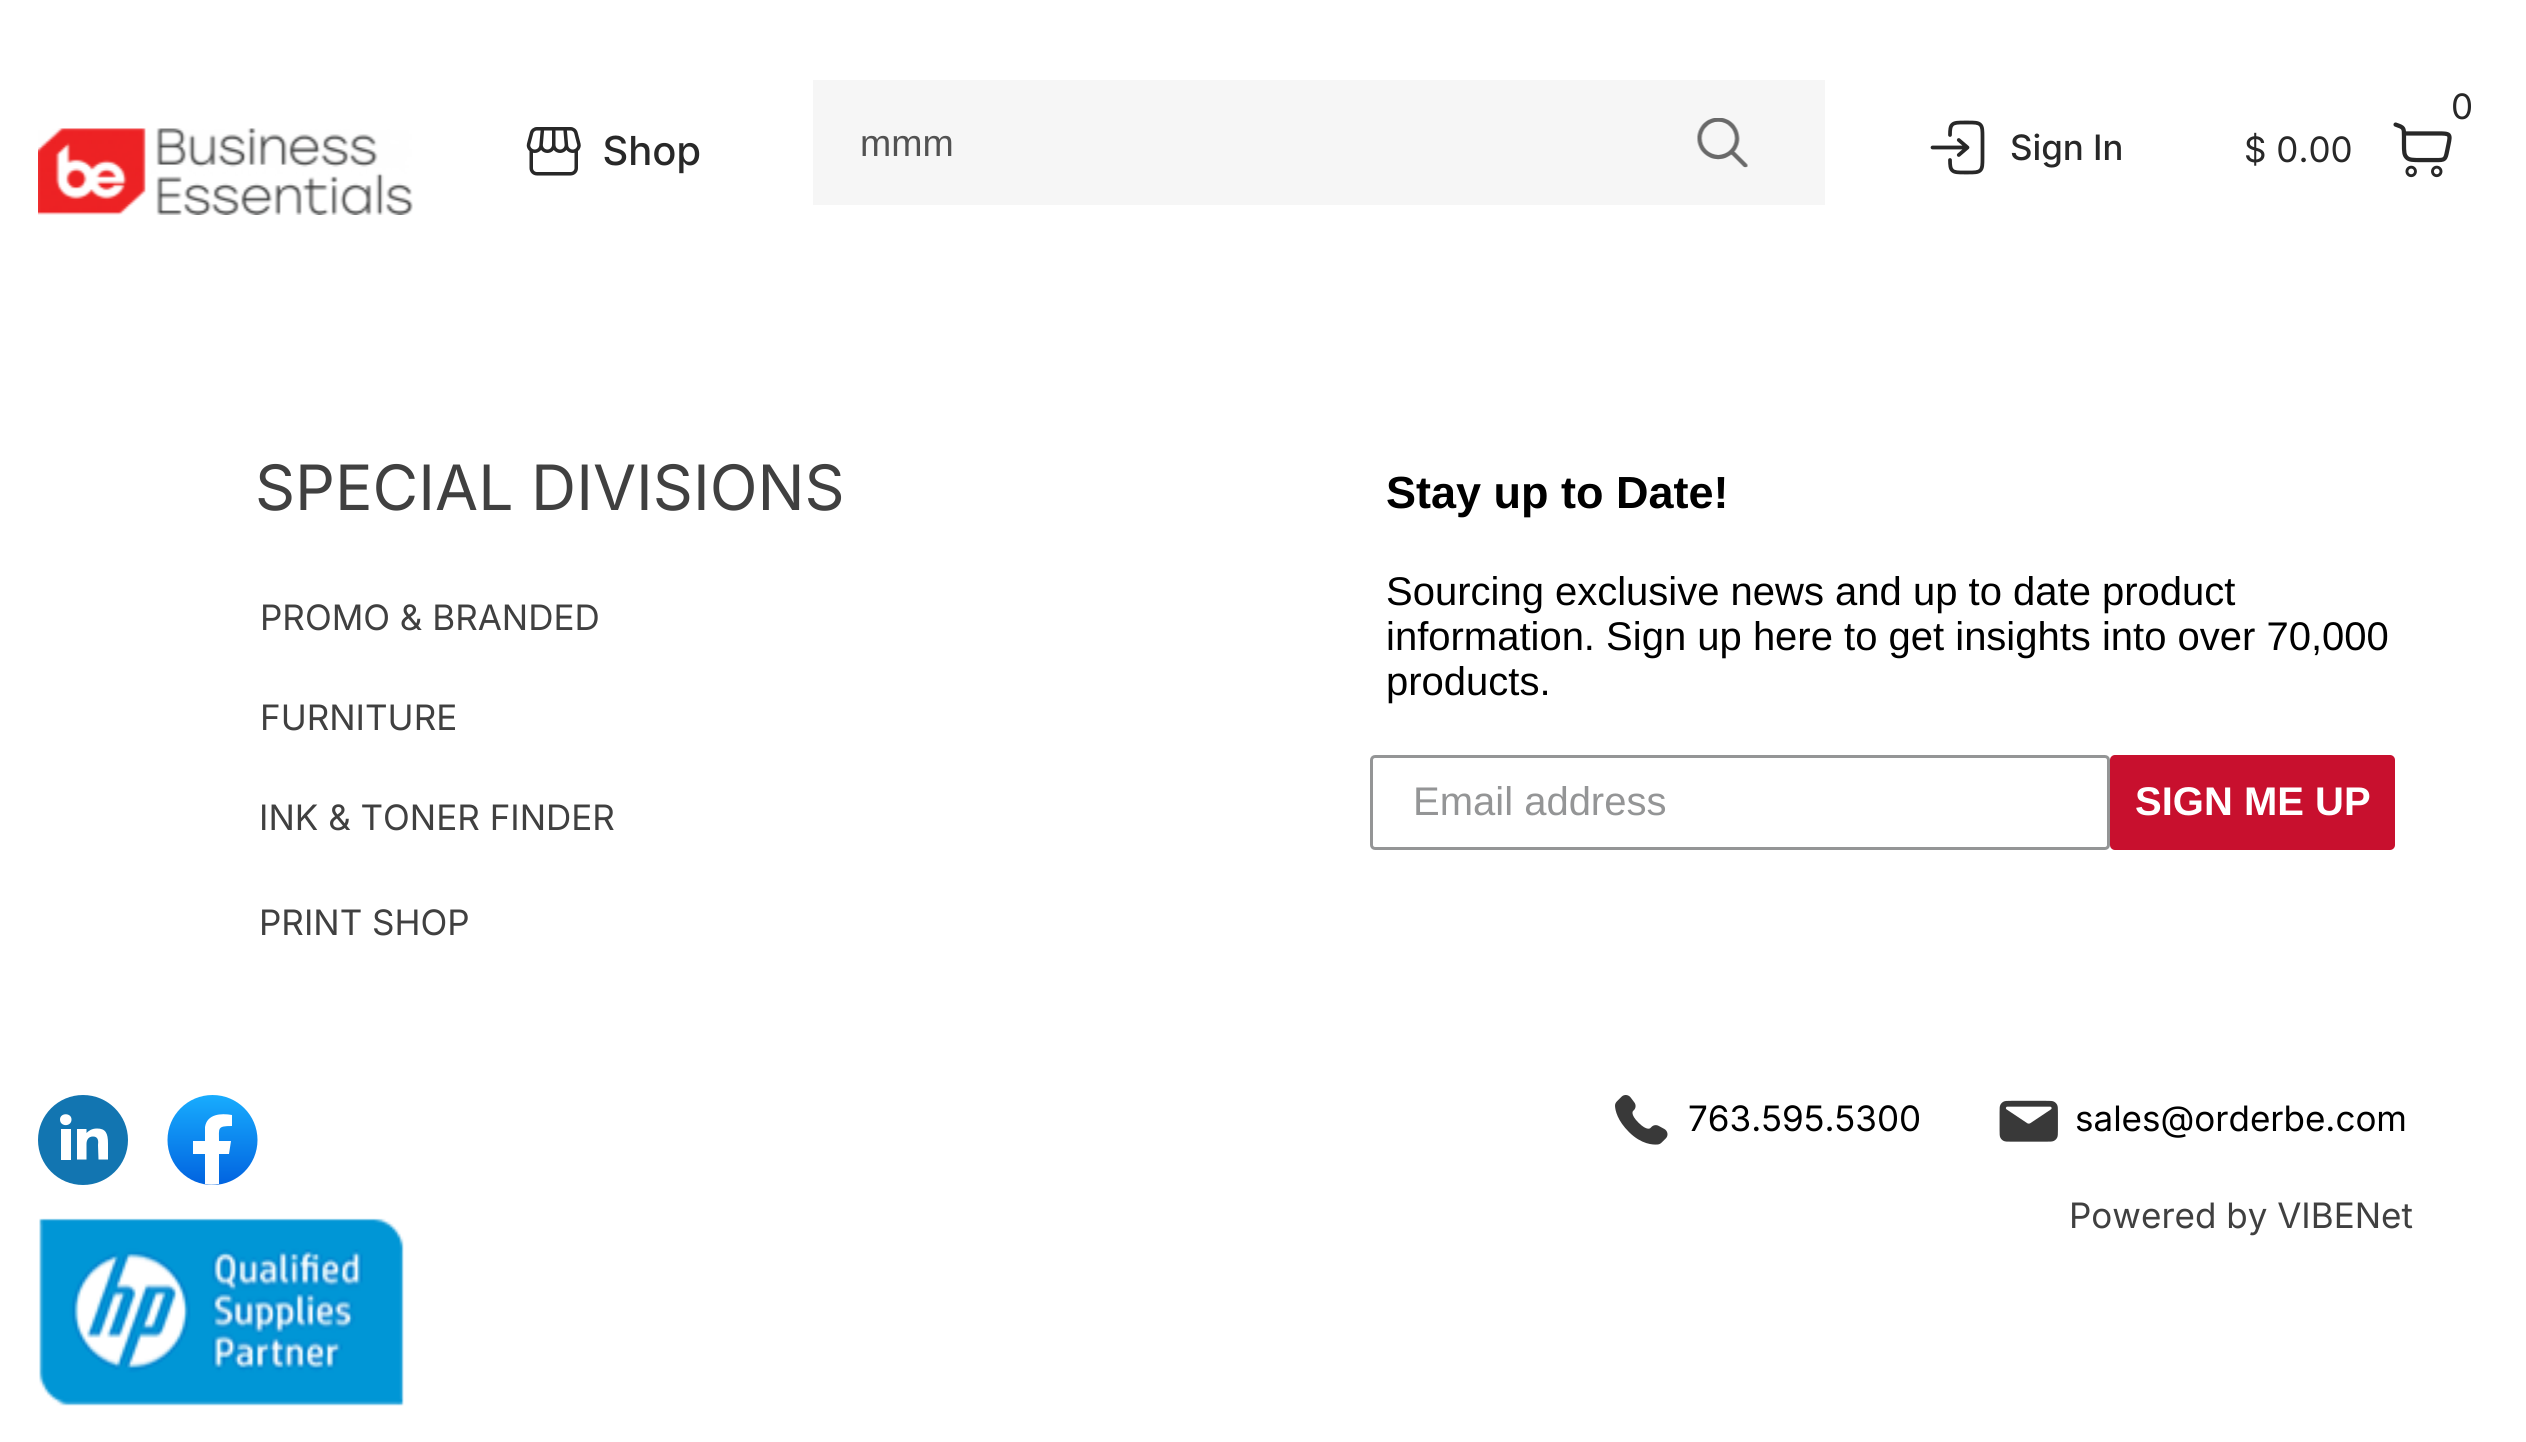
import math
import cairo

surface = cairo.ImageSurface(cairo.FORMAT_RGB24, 2526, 1442)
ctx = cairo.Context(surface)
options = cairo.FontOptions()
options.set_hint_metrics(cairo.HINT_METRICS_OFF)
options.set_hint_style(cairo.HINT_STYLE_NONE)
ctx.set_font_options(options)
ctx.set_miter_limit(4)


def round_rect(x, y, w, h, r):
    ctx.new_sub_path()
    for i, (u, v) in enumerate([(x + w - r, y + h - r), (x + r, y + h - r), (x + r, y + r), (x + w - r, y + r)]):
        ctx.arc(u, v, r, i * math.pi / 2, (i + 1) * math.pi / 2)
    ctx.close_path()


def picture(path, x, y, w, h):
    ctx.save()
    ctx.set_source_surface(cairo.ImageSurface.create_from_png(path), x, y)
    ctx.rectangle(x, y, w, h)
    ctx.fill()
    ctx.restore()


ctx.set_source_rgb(1, 1, 1)
ctx.paint()
picture("img1.png", 38, 128, 375, 87)
picture("img2.png", 526, 127, 174, 49)
ctx.set_source_rgb(0.961, 0.961, 0.961)
ctx.rectangle(813, 80, 1012, 125)
ctx.fill()
ctx.select_font_face("Liberation Sans")
ctx.set_font_size(37.5)
ctx.set_source_rgb(0.322, 0.322, 0.322)
ctx.move_to(860, 156)
ctx.show_text("mmm")
picture("img3.png", 1697, 118, 51, 50)
picture("img4.png", 1930, 120, 191, 55)
ctx.select_font_face("Inter")
ctx.set_font_size(35)
ctx.set_source_rgb(0.157, 0.157, 0.157)
ctx.move_to(2451, 119)
ctx.show_text("0")
picture("img5.png", 2393, 122, 59, 56)
ctx.move_to(2244, 162)
ctx.show_text("$ 0.00")
ctx.set_font_size(62.5)
ctx.set_source_rgb(0.251, 0.251, 0.251)
ctx.move_to(255, 510)
ctx.show_text("SPECIAL DIVISIONS")
ctx.set_font_size(35)
ctx.move_to(260, 630)
ctx.show_text("PROMO & BRANDED")
ctx.move_to(260, 730)
ctx.show_text("FURNITURE")
ctx.move_to(259, 830)
ctx.show_text("INK & TONER FINDER")
ctx.move_to(259, 935)
ctx.show_text("PRINT SHOP")
ctx.select_font_face("Liberation Sans", cairo.FONT_SLANT_NORMAL, cairo.FONT_WEIGHT_BOLD)
ctx.set_font_size(45)
ctx.set_source_rgb(0, 0, 0)
ctx.move_to(1386, 508)
ctx.show_text("Stay up to Date!")
ctx.select_font_face("Liberation Sans")
ctx.set_font_size(40)
ctx.move_to(1386, 605)
ctx.show_text("Sourcing exclusive news and up to date product")
ctx.move_to(1386, 650)
ctx.show_text("information. Sign up here to get insights into over 70,000")
ctx.move_to(1386, 695)
ctx.show_text("products.")
round_rect(1371.5, 756.5, 737, 92, 3.5)
ctx.set_source_rgb(0.58, 0.584, 0.588)
ctx.set_line_width(3)
ctx.stroke()
ctx.move_to(1413, 815)
ctx.show_text("Email address")
ctx.set_source_rgb(0.784, 0.063, 0.18)
round_rect(2110, 755, 285, 95, 5)
ctx.fill()
ctx.select_font_face("Liberation Sans", cairo.FONT_SLANT_NORMAL, cairo.FONT_WEIGHT_BOLD)
ctx.set_source_rgb(1, 1, 1)
ctx.move_to(2135, 815)
ctx.show_text("SIGN ME UP")
ctx.set_source_rgb(0.071, 0.459, 0.694)
ctx.new_path()
ctx.arc(83, 1140, 45, 0, 2 * math.pi)
ctx.fill()
ctx.set_source_rgb(1, 1, 1)
ctx.new_path()
ctx.move_to(71.5, 1119.5)
ctx.curve_to(71.5, 1127, 60, 1127, 60, 1119.5)
ctx.curve_to(60, 1112.5, 71.5, 1112.5, 71.5, 1119.5)
ctx.close_path()
ctx.fill()
ctx.rectangle(61, 1129, 10, 31)
ctx.fill()
ctx.new_path()
ctx.move_to(86.5, 1129)
ctx.line_to(77, 1129)
ctx.line_to(77, 1159.5)
ctx.line_to(86.5, 1159.5)
ctx.line_to(86.5, 1144)
ctx.curve_to(86.5, 1140.5, 88, 1136.5, 93, 1136.5)
ctx.curve_to(98.5, 1136.5, 98.5, 1141.5, 98, 1145)
ctx.line_to(98.5, 1159.5)
ctx.line_to(108, 1159.5)
ctx.line_to(108, 1143.5)
ctx.curve_to(108, 1133, 105.5, 1128.5, 97, 1128.5)
ctx.curve_to(91.5, 1128.5, 88.5, 1131, 86.5, 1133)
ctx.close_path()
ctx.fill()
gradient = cairo.LinearGradient(213, 1095, 213, 1185)
gradient.add_color_stop_rgba(0, 0.094, 0.675, 0.996, 1)
gradient.add_color_stop_rgba(1, 0.004, 0.388, 0.878, 1)
ctx.set_source(gradient)
ctx.arc(212.5, 1140, 45, 0, 2 * math.pi)
ctx.fill()
ctx.set_source_rgb(1, 1, 1)
ctx.new_path()
ctx.move_to(229, 1154)
ctx.line_to(231, 1141)
ctx.line_to(219, 1141)
ctx.curve_to(219, 1128, 217, 1126, 232, 1126)
ctx.line_to(232, 1115)
ctx.curve_to(221, 1113, 207, 1114, 205, 1127)
ctx.line_to(205, 1141)
ctx.line_to(193, 1141)
ctx.line_to(193, 1154)
ctx.line_to(205, 1154)
ctx.line_to(205, 1184)
ctx.curve_to(209, 1185, 214, 1185, 219, 1184)
ctx.line_to(219, 1154)
ctx.close_path()
ctx.fill()
picture("img6.png", 39, 1218, 365, 188)
picture("img7.png", 1615, 1095, 53, 50)
ctx.select_font_face("Inter")
ctx.set_font_size(35)
ctx.set_source_rgb(0, 0, 0)
ctx.move_to(1688, 1131)
ctx.show_text("763.595.5300")
picture("img8.png", 1999, 1100, 59, 42)
ctx.move_to(2075, 1131)
ctx.show_text("sales@orderbe.com")
ctx.set_source_rgb(0.251, 0.251, 0.251)
ctx.move_to(2069, 1228)
ctx.show_text("Powered by VIBENet")
surface.write_to_png("page.png")
